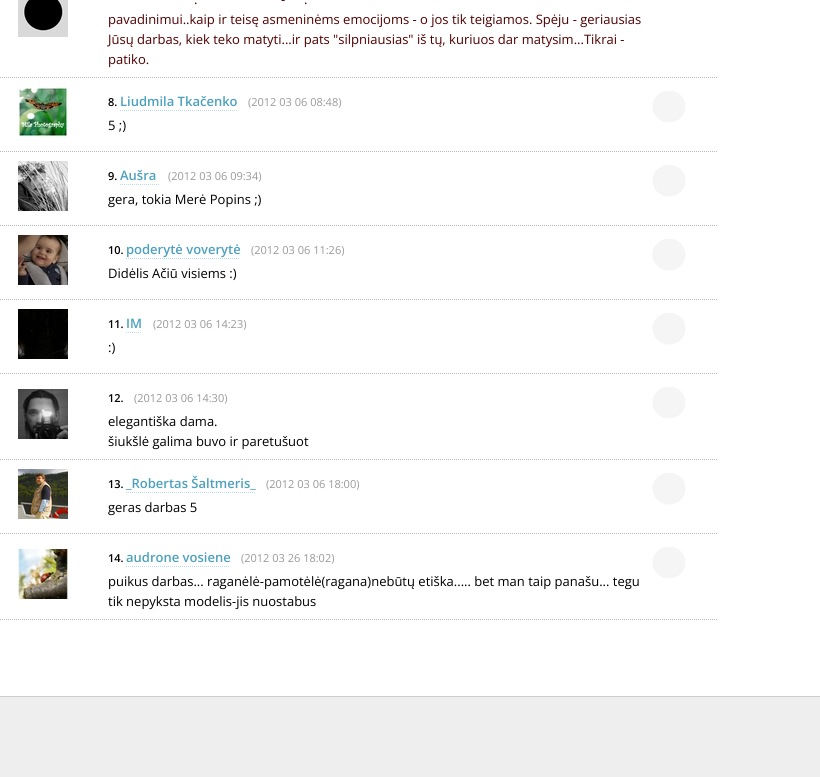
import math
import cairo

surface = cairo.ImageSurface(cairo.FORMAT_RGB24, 820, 777)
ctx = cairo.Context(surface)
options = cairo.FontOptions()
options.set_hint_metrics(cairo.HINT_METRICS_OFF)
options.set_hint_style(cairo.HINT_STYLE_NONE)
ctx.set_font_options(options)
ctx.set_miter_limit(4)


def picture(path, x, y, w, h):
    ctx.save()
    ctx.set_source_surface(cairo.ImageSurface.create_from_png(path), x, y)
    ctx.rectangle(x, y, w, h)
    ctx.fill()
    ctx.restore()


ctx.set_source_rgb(1, 1, 1)
ctx.paint()
picture("img1.png", 18, 0, 50, 37)
ctx.select_font_face("Open Sans")
ctx.set_font_size(13)
ctx.set_source_rgb(0.314, 0, 0)
ctx.move_to(281, 4)
ctx.show_text("-")
ctx.move_to(194, 4)
ctx.show_text(".")
ctx.move_to(304, 4)
ctx.show_text(".")
ctx.move_to(108, 24)
ctx.show_text("pavadinimui..kaip ir teisę asmeninėms emocijoms - o jos tik teigiamos. Spėju - geriausias")
ctx.move_to(108, 44)
ctx.show_text("Jūsų darbas, kiek teko matyti...ir pats \"silpniausias\" iš tų, kuriuos dar matysim...Tikrai -")
ctx.move_to(108, 64)
ctx.show_text("patiko.")
ctx.new_path()
ctx.move_to(0, 77.5)
ctx.line_to(718, 77.5)
ctx.set_source_rgb(0.733, 0.733, 0.733)
ctx.set_line_width(1)
ctx.set_dash([1, 1])
ctx.stroke()
picture("img2.png", 18, 87, 50, 50)
ctx.select_font_face("Open Sans SemiBold")
ctx.set_font_size(11)
ctx.set_source_rgb(0, 0, 0)
ctx.move_to(108, 106)
ctx.show_text("8.")
ctx.set_font_size(13)
ctx.set_source_rgb(0.302, 0.631, 0.741)
ctx.move_to(120, 106)
ctx.show_text("Liudmila Tkačenko")
ctx.new_path()
ctx.move_to(120, 110.5)
ctx.line_to(237, 110.5)
ctx.set_source_rgb(0.733, 0.867, 0.91)
ctx.stroke()
ctx.select_font_face("Open Sans")
ctx.set_font_size(11)
ctx.set_source_rgb(0.6, 0.6, 0.6)
ctx.move_to(248, 106)
ctx.show_text("(2012 03 06 08:48)")
ctx.set_font_size(13)
ctx.set_source_rgb(0, 0, 0)
ctx.move_to(108, 130)
ctx.show_text("5 ;)")
picture("img3.png", 652, 91, 34, 32)
ctx.new_path()
ctx.move_to(0, 151.5)
ctx.line_to(718, 151.5)
ctx.set_source_rgb(0.733, 0.733, 0.733)
ctx.stroke()
picture("img4.png", 18, 161, 50, 50)
ctx.select_font_face("Open Sans SemiBold")
ctx.set_font_size(11)
ctx.set_source_rgb(0, 0, 0)
ctx.move_to(108, 180)
ctx.show_text("9.")
ctx.set_font_size(13)
ctx.set_source_rgb(0.302, 0.631, 0.741)
ctx.move_to(120, 180)
ctx.show_text("Aušra")
ctx.new_path()
ctx.move_to(120, 184.5)
ctx.line_to(159, 184.5)
ctx.set_source_rgb(0.733, 0.867, 0.91)
ctx.stroke()
ctx.select_font_face("Open Sans")
ctx.set_font_size(11)
ctx.set_source_rgb(0.6, 0.6, 0.6)
ctx.move_to(168, 180)
ctx.show_text("(2012 03 06 09:34)")
ctx.set_font_size(13)
ctx.set_source_rgb(0, 0, 0)
ctx.move_to(108, 204)
ctx.show_text("gera, tokia Merė Popins ;)")
picture("img3.png", 652, 165, 34, 32)
ctx.new_path()
ctx.move_to(0, 225.5)
ctx.line_to(718, 225.5)
ctx.set_source_rgb(0.733, 0.733, 0.733)
ctx.stroke()
picture("img5.png", 18, 235, 50, 50)
ctx.select_font_face("Open Sans SemiBold")
ctx.set_font_size(11)
ctx.set_source_rgb(0, 0, 0)
ctx.move_to(108, 254)
ctx.show_text("10.")
ctx.set_font_size(13)
ctx.set_source_rgb(0.302, 0.631, 0.741)
ctx.move_to(126, 254)
ctx.show_text("poderytė voverytė")
ctx.new_path()
ctx.move_to(126, 258.5)
ctx.line_to(240, 258.5)
ctx.set_source_rgb(0.733, 0.867, 0.91)
ctx.stroke()
ctx.select_font_face("Open Sans")
ctx.set_font_size(11)
ctx.set_source_rgb(0.6, 0.6, 0.6)
ctx.move_to(251, 254)
ctx.show_text("(2012 03 06 11:26)")
ctx.set_font_size(13)
ctx.set_source_rgb(0, 0, 0)
ctx.move_to(108, 278)
ctx.show_text("Didėlis Ačiū visiems :)")
picture("img3.png", 652, 239, 34, 32)
ctx.new_path()
ctx.move_to(0, 299.5)
ctx.line_to(718, 299.5)
ctx.set_source_rgb(0.733, 0.733, 0.733)
ctx.stroke()
picture("img6.png", 18, 309, 50, 50)
ctx.select_font_face("Open Sans SemiBold")
ctx.set_font_size(11)
ctx.set_source_rgb(0, 0, 0)
ctx.move_to(108, 328)
ctx.show_text("11.")
ctx.set_font_size(13)
ctx.set_source_rgb(0.302, 0.631, 0.741)
ctx.move_to(126, 328)
ctx.show_text("IM")
ctx.new_path()
ctx.move_to(126, 332.5)
ctx.line_to(142, 332.5)
ctx.set_source_rgb(0.733, 0.867, 0.91)
ctx.stroke()
ctx.select_font_face("Open Sans")
ctx.set_font_size(11)
ctx.set_source_rgb(0.6, 0.6, 0.6)
ctx.move_to(153, 328)
ctx.show_text("(2012 03 06 14:23)")
ctx.set_font_size(13)
ctx.set_source_rgb(0, 0, 0)
ctx.move_to(108, 352)
ctx.show_text(":)")
picture("img3.png", 652, 313, 34, 32)
ctx.new_path()
ctx.move_to(0, 373.5)
ctx.line_to(718, 373.5)
ctx.set_source_rgb(0.733, 0.733, 0.733)
ctx.stroke()
picture("img7.png", 18, 389, 50, 50)
ctx.select_font_face("Open Sans SemiBold")
ctx.set_font_size(11)
ctx.set_source_rgb(0, 0, 0)
ctx.move_to(108, 402)
ctx.show_text("12.")
ctx.select_font_face("Open Sans")
ctx.set_source_rgb(0.6, 0.6, 0.6)
ctx.move_to(134, 402)
ctx.show_text("(2012 03 06 14:30)")
ctx.set_font_size(13)
ctx.set_source_rgb(0, 0, 0)
ctx.move_to(108, 426)
ctx.show_text("elegantiška dama.")
ctx.move_to(108, 446)
ctx.show_text("šiukšlė galima buvo ir paretušuot")
picture("img3.png", 652, 387, 34, 32)
ctx.new_path()
ctx.move_to(0, 459.5)
ctx.line_to(718, 459.5)
ctx.set_source_rgb(0.733, 0.733, 0.733)
ctx.stroke()
picture("img8.png", 18, 469, 50, 50)
ctx.select_font_face("Open Sans SemiBold")
ctx.set_font_size(11)
ctx.set_source_rgb(0, 0, 0)
ctx.move_to(108, 488)
ctx.show_text("13.")
ctx.set_font_size(13)
ctx.set_source_rgb(0.302, 0.631, 0.741)
ctx.move_to(126, 488)
ctx.show_text("_Robertas Šaltmeris_")
ctx.new_path()
ctx.move_to(126, 492.5)
ctx.line_to(255, 492.5)
ctx.set_source_rgb(0.733, 0.867, 0.91)
ctx.stroke()
ctx.select_font_face("Open Sans")
ctx.set_font_size(11)
ctx.set_source_rgb(0.6, 0.6, 0.6)
ctx.move_to(266, 488)
ctx.show_text("(2012 03 06 18:00)")
ctx.set_font_size(13)
ctx.set_source_rgb(0, 0, 0)
ctx.move_to(108, 512)
ctx.show_text("geras darbas 5")
picture("img3.png", 652, 473, 34, 32)
ctx.new_path()
ctx.move_to(0, 533.5)
ctx.line_to(718, 533.5)
ctx.set_source_rgb(0.733, 0.733, 0.733)
ctx.stroke()
picture("img9.png", 18, 549, 50, 50)
ctx.select_font_face("Open Sans SemiBold")
ctx.set_font_size(11)
ctx.set_source_rgb(0, 0, 0)
ctx.move_to(108, 562)
ctx.show_text("14.")
ctx.set_font_size(13)
ctx.set_source_rgb(0.302, 0.631, 0.741)
ctx.move_to(126, 562)
ctx.show_text("audrone vosiene")
ctx.new_path()
ctx.move_to(126, 566.5)
ctx.line_to(230, 566.5)
ctx.set_source_rgb(0.733, 0.867, 0.91)
ctx.stroke()
ctx.select_font_face("Open Sans")
ctx.set_font_size(11)
ctx.set_source_rgb(0.6, 0.6, 0.6)
ctx.move_to(241, 562)
ctx.show_text("(2012 03 26 18:02)")
ctx.set_font_size(13)
ctx.set_source_rgb(0, 0, 0)
ctx.move_to(108, 586)
ctx.show_text("puikus darbas... raganėlė-pamotėlė(ragana)nebūtų etiška..... bet man taip panašu... tegu")
ctx.move_to(108, 606)
ctx.show_text("tik nepyksta modelis-jis nuostabus")
picture("img3.png", 652, 547, 34, 32)
ctx.new_path()
ctx.move_to(0, 619.5)
ctx.line_to(718, 619.5)
ctx.set_source_rgb(0.733, 0.733, 0.733)
ctx.stroke()
ctx.set_source_rgb(0.933, 0.933, 0.933)
ctx.rectangle(0, 697, 820, 80)
ctx.fill()
ctx.set_source_rgb(0.8, 0.8, 0.8)
ctx.rectangle(0, 696, 820, 1)
ctx.fill()
surface.write_to_png("page.png")
